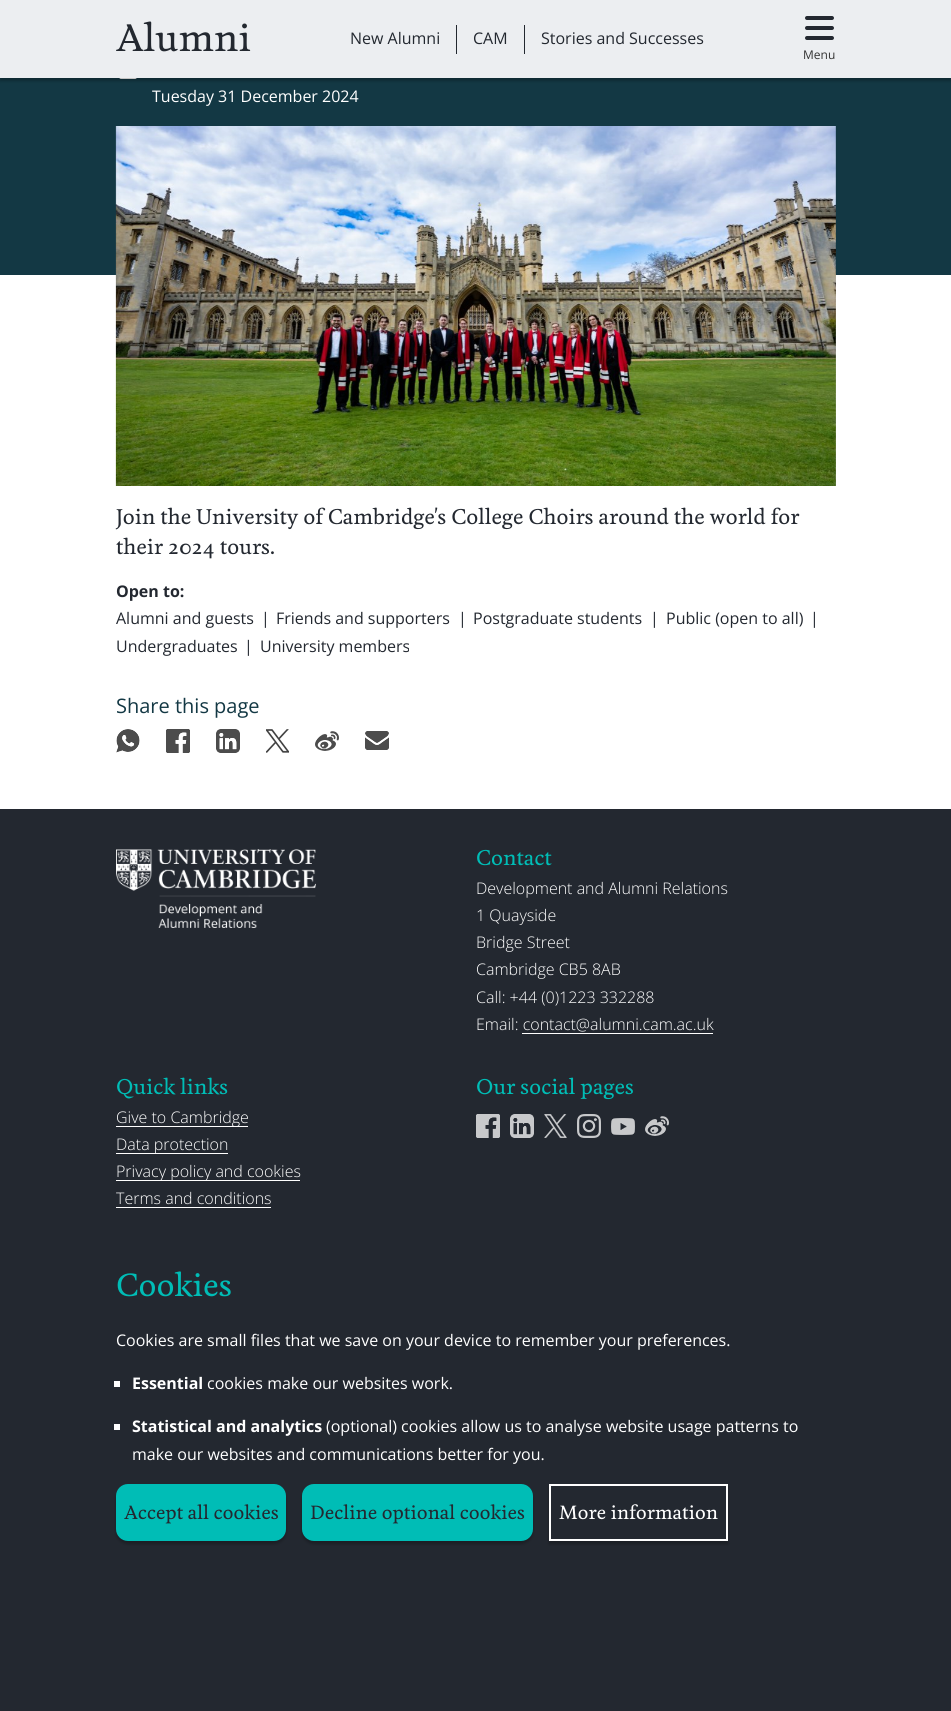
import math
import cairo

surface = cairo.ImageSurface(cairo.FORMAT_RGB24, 951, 1711)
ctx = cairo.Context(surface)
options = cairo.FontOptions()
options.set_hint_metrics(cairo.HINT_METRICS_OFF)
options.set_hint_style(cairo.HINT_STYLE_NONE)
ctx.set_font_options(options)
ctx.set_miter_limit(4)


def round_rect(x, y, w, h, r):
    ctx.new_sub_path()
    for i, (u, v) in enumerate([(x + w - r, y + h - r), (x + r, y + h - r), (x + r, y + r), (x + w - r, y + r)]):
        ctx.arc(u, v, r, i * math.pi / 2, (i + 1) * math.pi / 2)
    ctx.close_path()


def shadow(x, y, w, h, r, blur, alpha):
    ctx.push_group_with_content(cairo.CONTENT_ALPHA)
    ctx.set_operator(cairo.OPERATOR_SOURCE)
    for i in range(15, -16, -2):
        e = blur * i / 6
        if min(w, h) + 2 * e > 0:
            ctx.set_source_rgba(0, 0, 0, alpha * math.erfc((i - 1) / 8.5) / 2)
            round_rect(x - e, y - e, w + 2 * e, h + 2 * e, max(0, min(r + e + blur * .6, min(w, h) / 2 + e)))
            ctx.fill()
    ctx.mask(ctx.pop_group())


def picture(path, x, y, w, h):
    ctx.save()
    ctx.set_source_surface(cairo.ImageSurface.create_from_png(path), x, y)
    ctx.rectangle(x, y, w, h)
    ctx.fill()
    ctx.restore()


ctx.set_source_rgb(1, 1, 1)
ctx.paint()
ctx.set_source_rgb(0.075, 0.22, 0.267)
ctx.rectangle(0, 78, 951, 197)
ctx.fill()
picture("img2.png", 119, 78, 18, 1)
ctx.set_source_rgb(0, 0, 0)
shadow(0, 3, 951, 78, 0, 1.5, 0.25)
ctx.set_source_rgb(0.925, 0.933, 0.945)
ctx.rectangle(0, 0, 951, 78)
ctx.fill()
picture("img1.png", 116, 21, 135, 31)
ctx.set_source_rgb(0.137, 0.157, 0.188)
ctx.rectangle(456, 25, 1, 29)
ctx.fill()
ctx.select_font_face("Open Sans")
ctx.set_font_size(16)
ctx.move_to(350, 44)
ctx.show_text("New Alumni")
ctx.rectangle(524, 25, 1, 29)
ctx.fill()
ctx.move_to(473, 44)
ctx.show_text("CAM")
ctx.move_to(541, 44)
ctx.show_text("Stories and Successes")
round_rect(805, 16, 29, 4, 2)
ctx.fill()
round_rect(805, 26, 29, 4, 2)
ctx.fill()
round_rect(805, 36, 29, 4, 2)
ctx.fill()
ctx.set_font_size(12)
ctx.set_source_rgb(0.2, 0.2, 0.2)
ctx.move_to(803, 59)
ctx.show_text("Menu")
ctx.set_font_size(16)
ctx.set_source_rgb(1, 1, 1)
ctx.move_to(152, 102)
ctx.show_text("Tuesday 31 December 2024")
picture("img3.png", 115, 126, 721, 360)
picture("img4.png", 115, 507, 685, 23)
picture("img5.png", 116, 537, 158, 22)
ctx.select_font_face("Open Sans", cairo.FONT_SLANT_NORMAL, cairo.FONT_WEIGHT_BOLD)
ctx.set_source_rgb(0.137, 0.157, 0.188)
ctx.move_to(116, 597)
ctx.show_text("Open to:")
ctx.select_font_face("Open Sans")
ctx.move_to(116, 624)
ctx.show_text("Alumni and guests")
ctx.move_to(261, 624)
ctx.show_text("|")
ctx.move_to(276, 624)
ctx.show_text("Friends and supporters")
ctx.move_to(458, 624)
ctx.show_text("|")
ctx.move_to(473, 624)
ctx.show_text("Postgraduate students")
ctx.move_to(650, 624)
ctx.show_text("|")
ctx.move_to(666, 624)
ctx.show_text("Public (open to all)")
ctx.move_to(810, 624)
ctx.show_text("|")
ctx.move_to(116, 652)
ctx.show_text("Undergraduates")
ctx.move_to(244, 652)
ctx.show_text("|")
ctx.move_to(260, 652)
ctx.show_text("University members")
ctx.set_font_size(20)
ctx.set_source_rgb(0.075, 0.22, 0.267)
ctx.move_to(116, 713)
ctx.show_text("Share this page")
picture("img6.png", 116, 729, 24, 24)
picture("img7.png", 166, 729, 24, 24)
picture("img8.png", 216, 729, 24, 24)
picture("img9.png", 266, 729, 23, 24)
picture("img10.png", 315, 731, 24, 20)
picture("img11.png", 365, 731, 24, 19)
ctx.set_source_rgb(0.137, 0.157, 0.188)
ctx.rectangle(0, 809, 951, 902)
ctx.fill()
picture("img12.png", 116, 849, 200, 79)
picture("img13.png", 477, 849, 75, 17)
ctx.select_font_face("Open Sans Light")
ctx.set_font_size(16)
ctx.set_source_rgb(1, 1, 1)
ctx.move_to(476, 894)
ctx.show_text("Development and Alumni Relations")
ctx.move_to(476, 921)
ctx.show_text("1 Quayside")
ctx.move_to(476, 948)
ctx.show_text("Bridge Street")
ctx.move_to(476, 975)
ctx.show_text("Cambridge CB5 8AB")
ctx.move_to(476, 1003)
ctx.show_text("Call: +44 (0)1223 332288")
ctx.move_to(476, 1030)
ctx.show_text("Email: contact@alumni.cam.ac.uk")
ctx.rectangle(522, 1033, 191, 1)
ctx.fill()
picture("img14.png", 117, 1077, 111, 22)
ctx.rectangle(116, 1126, 132, 1)
ctx.fill()
ctx.move_to(116, 1123)
ctx.show_text("Give to Cambridge")
ctx.rectangle(116, 1153, 112, 1)
ctx.fill()
ctx.move_to(116, 1150)
ctx.show_text("Data protection")
ctx.rectangle(116, 1180, 184, 1)
ctx.fill()
ctx.move_to(116, 1177)
ctx.show_text("Privacy policy and cookies")
ctx.move_to(116, 1204)
ctx.show_text("Terms and conditions")
ctx.rectangle(116, 1207, 155, 1)
ctx.fill()
picture("img15.png", 477, 1077, 156, 23)
picture("img16.png", 476, 1114, 24, 24)
picture("img17.png", 510, 1114, 24, 24)
picture("img18.png", 544, 1114, 23, 24)
picture("img19.png", 577, 1114, 24, 24)
picture("img20.png", 611, 1118, 24, 17)
picture("img21.png", 645, 1116, 24, 20)
picture("img22.png", 117, 1271, 114, 26)
ctx.select_font_face("Open Sans")
ctx.move_to(116, 1346)
ctx.show_text("Cookies are small files that we save on your device to remember your preferences.")
ctx.rectangle(114, 1381, 6, 6)
ctx.fill()
ctx.select_font_face("Open Sans", cairo.FONT_SLANT_NORMAL, cairo.FONT_WEIGHT_BOLD)
ctx.move_to(132, 1389)
ctx.show_text("Essential")
ctx.select_font_face("Open Sans")
ctx.move_to(207, 1389)
ctx.show_text("cookies make our websites work.")
ctx.rectangle(114, 1424, 6, 6)
ctx.fill()
ctx.select_font_face("Open Sans", cairo.FONT_SLANT_NORMAL, cairo.FONT_WEIGHT_BOLD)
ctx.move_to(132, 1432)
ctx.show_text("Statistical and analytics")
ctx.select_font_face("Open Sans")
ctx.move_to(326, 1432)
ctx.show_text("(optional) cookies allow us to analyse website usage patterns to")
ctx.move_to(132, 1460)
ctx.show_text("make our websites and communications better for you.")
ctx.set_source_rgb(0, 0, 0)
shadow(116, 1487, 170, 57, 12, 1.5, 0.25)
ctx.set_source_rgb(0, 0.741, 0.714)
round_rect(116, 1484, 170, 57, 12)
ctx.fill()
picture("img23.png", 124, 1504, 154, 20)
ctx.set_source_rgb(0, 0, 0)
shadow(302, 1487, 231, 57, 12, 1.5, 0.25)
ctx.set_source_rgb(0, 0.741, 0.714)
round_rect(302, 1484, 231, 57, 12)
ctx.fill()
picture("img24.png", 310, 1504, 215, 20)
ctx.save()
ctx.set_fill_rule(cairo.FILL_RULE_EVEN_ODD)
ctx.new_path()
ctx.move_to(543, 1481)
ctx.line_to(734, 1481)
ctx.line_to(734, 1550)
ctx.line_to(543, 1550)
ctx.close_path()
ctx.move_to(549, 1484)
ctx.line_to(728, 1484)
ctx.line_to(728, 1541)
ctx.line_to(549, 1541)
ctx.close_path()
ctx.clip()
ctx.set_source_rgb(0, 0, 0)
shadow(549, 1487, 179, 57, 0, 1.5, 0.25)
ctx.restore()
ctx.rectangle(550, 1485, 177, 55)
ctx.set_source_rgb(1, 1, 1)
ctx.stroke()
picture("img25.png", 559, 1504, 159, 16)
surface.write_to_png("page.png")
